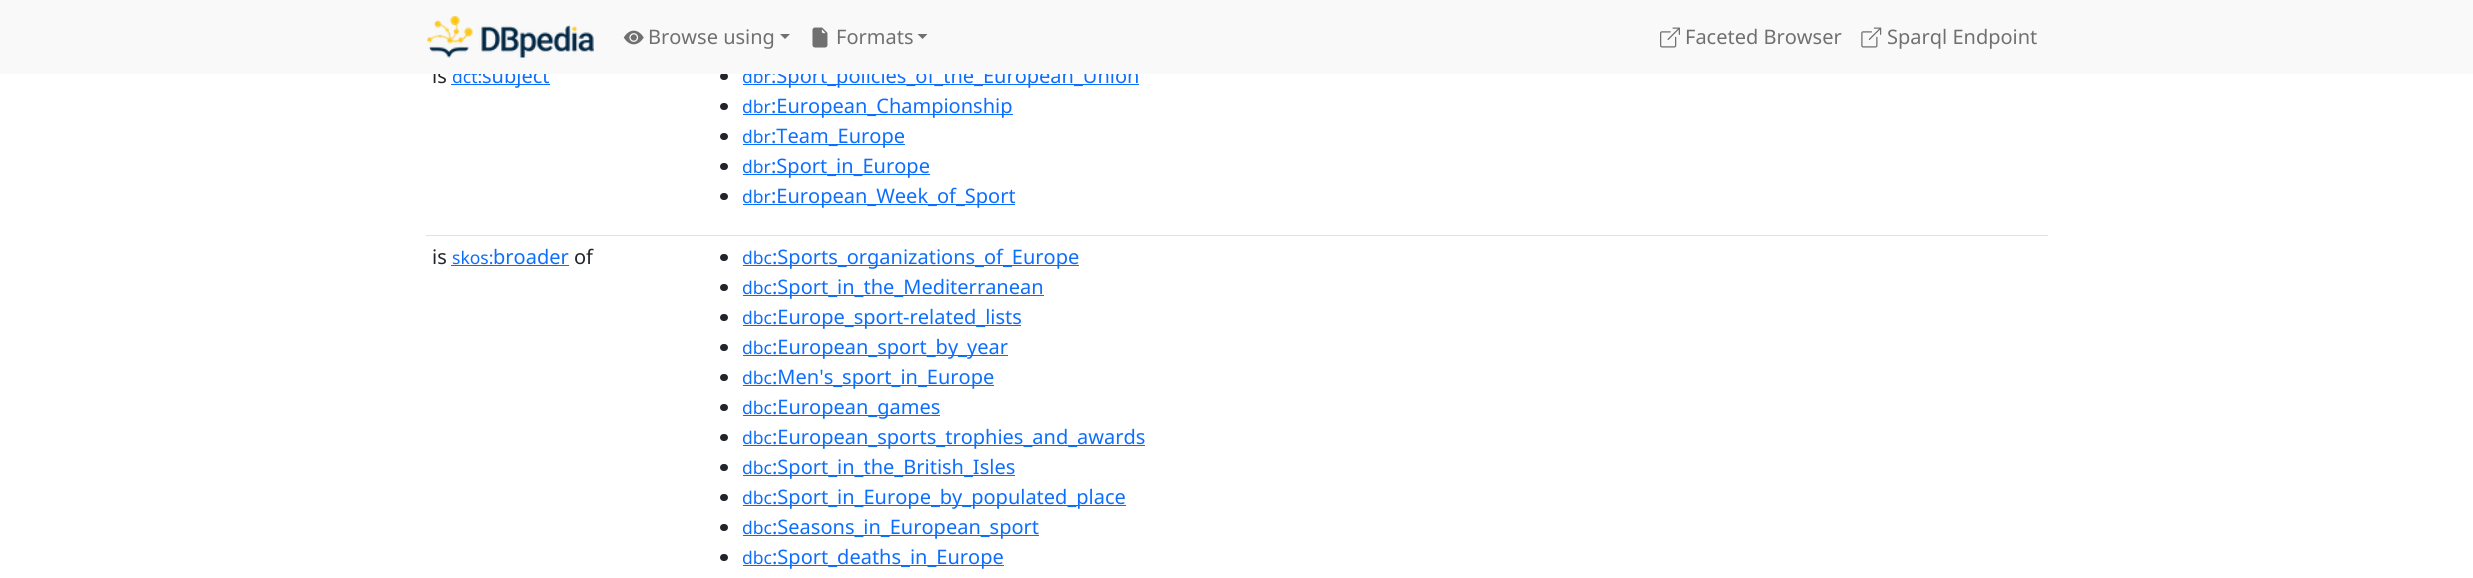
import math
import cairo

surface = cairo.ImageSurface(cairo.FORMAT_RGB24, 2473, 578)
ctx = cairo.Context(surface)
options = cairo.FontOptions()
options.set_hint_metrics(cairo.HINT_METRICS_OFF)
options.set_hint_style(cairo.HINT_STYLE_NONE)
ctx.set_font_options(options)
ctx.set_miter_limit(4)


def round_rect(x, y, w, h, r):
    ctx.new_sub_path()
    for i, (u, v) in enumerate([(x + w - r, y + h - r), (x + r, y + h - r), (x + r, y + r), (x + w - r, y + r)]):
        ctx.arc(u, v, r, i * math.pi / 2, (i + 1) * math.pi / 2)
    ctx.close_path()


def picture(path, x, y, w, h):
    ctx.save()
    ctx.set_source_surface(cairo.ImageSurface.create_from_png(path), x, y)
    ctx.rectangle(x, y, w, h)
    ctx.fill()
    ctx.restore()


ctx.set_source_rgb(1, 1, 1)
ctx.paint()
ctx.select_font_face("Noto Sans")
ctx.set_font_size(20)
ctx.set_source_rgb(0.129, 0.145, 0.161)
ctx.move_to(432, 83)
ctx.show_text("is")
ctx.set_font_size(17.5)
ctx.set_source_rgb(0.051, 0.431, 0.992)
ctx.move_to(452, 83)
ctx.show_text("dct:")
ctx.rectangle(451, 84, 99, 1)
ctx.fill()
ctx.set_font_size(20)
ctx.move_to(482, 83)
ctx.show_text("subject")
ctx.set_source_rgb(0.129, 0.145, 0.161)
round_rect(720, 73, 8, 7, 3.5)
ctx.fill()
ctx.set_font_size(17.5)
ctx.set_source_rgb(0.051, 0.431, 0.992)
ctx.move_to(742, 83)
ctx.show_text("dbr")
ctx.rectangle(743, 84, 396, 1)
ctx.fill()
ctx.set_font_size(20)
ctx.move_to(771, 83)
ctx.show_text(":Sport_policies_of_the_European_Union")
ctx.set_source_rgb(0.973, 0.976, 0.98)
ctx.rectangle(0, 0, 2473, 74)
ctx.fill()
picture("img1.png", 427, 16, 167, 42)
picture("img2.png", 623, 30, 21, 15)
ctx.set_source_rgb(0.439, 0.439, 0.443)
ctx.move_to(648, 44)
ctx.show_text("Browse using")
ctx.new_path()
ctx.move_to(780, 34)
ctx.line_to(790, 34)
ctx.line_to(785, 39)
ctx.close_path()
ctx.fill()
picture("img3.png", 812, 27, 16, 21)
ctx.move_to(836, 44)
ctx.show_text("Formats")
ctx.new_path()
ctx.move_to(917.5, 34)
ctx.line_to(927.5, 34)
ctx.line_to(922.5, 39)
ctx.close_path()
ctx.fill()
picture("img4.png", 1660, 27, 20, 21)
ctx.move_to(1685, 44)
ctx.show_text("Faceted Browser")
picture("img5.png", 1861, 27, 21, 21)
ctx.move_to(1887, 44)
ctx.show_text("Sparql Endpoint")
ctx.set_source_rgb(0.871, 0.886, 0.902)
ctx.rectangle(426, 235, 1622, 1)
ctx.fill()
ctx.set_source_rgb(0.129, 0.145, 0.161)
round_rect(720, 103, 8, 7, 3.5)
ctx.fill()
ctx.set_font_size(17.5)
ctx.set_source_rgb(0.051, 0.431, 0.992)
ctx.move_to(742, 113)
ctx.show_text("dbr")
ctx.rectangle(743, 114, 270, 1)
ctx.fill()
ctx.set_font_size(20)
ctx.move_to(771, 113)
ctx.show_text(":European_Championship")
ctx.set_source_rgb(0.129, 0.145, 0.161)
round_rect(720, 133, 8, 7, 3.5)
ctx.fill()
ctx.set_font_size(17.5)
ctx.set_source_rgb(0.051, 0.431, 0.992)
ctx.move_to(742, 143)
ctx.show_text("dbr")
ctx.rectangle(743, 144, 162, 1)
ctx.fill()
ctx.set_font_size(20)
ctx.move_to(771, 143)
ctx.show_text(":Team_Europe")
ctx.set_source_rgb(0.129, 0.145, 0.161)
round_rect(720, 163, 8, 7, 3.5)
ctx.fill()
ctx.set_font_size(17.5)
ctx.set_source_rgb(0.051, 0.431, 0.992)
ctx.move_to(742, 173)
ctx.show_text("dbr")
ctx.rectangle(743, 174, 187, 1)
ctx.fill()
ctx.set_font_size(20)
ctx.move_to(771, 173)
ctx.show_text(":Sport_in_Europe")
ctx.set_source_rgb(0.129, 0.145, 0.161)
round_rect(720, 193, 8, 7, 3.5)
ctx.fill()
ctx.set_font_size(17.5)
ctx.set_source_rgb(0.051, 0.431, 0.992)
ctx.move_to(742, 203)
ctx.show_text("dbr")
ctx.rectangle(743, 204, 272, 1)
ctx.fill()
ctx.set_font_size(20)
ctx.move_to(771, 203)
ctx.show_text(":European_Week_of_Sport")
ctx.set_source_rgb(0.129, 0.145, 0.161)
ctx.move_to(432, 264)
ctx.show_text("is")
ctx.set_font_size(17.5)
ctx.set_source_rgb(0.051, 0.431, 0.992)
ctx.move_to(452, 264)
ctx.show_text("skos:")
ctx.rectangle(451, 265, 118, 1)
ctx.fill()
ctx.set_font_size(20)
ctx.move_to(493, 264)
ctx.show_text("broader")
ctx.set_source_rgb(0.129, 0.145, 0.161)
ctx.move_to(574, 264)
ctx.show_text("of")
round_rect(720, 254, 8, 7, 3.5)
ctx.fill()
ctx.set_font_size(17.5)
ctx.set_source_rgb(0.051, 0.431, 0.992)
ctx.move_to(742, 264)
ctx.show_text("dbc")
ctx.rectangle(743, 265, 336, 1)
ctx.fill()
ctx.set_font_size(20)
ctx.move_to(772, 264)
ctx.show_text(":Sports_organizations_of_Europe")
ctx.set_source_rgb(0.129, 0.145, 0.161)
round_rect(720, 284, 8, 7, 3.5)
ctx.fill()
ctx.set_font_size(17.5)
ctx.set_source_rgb(0.051, 0.431, 0.992)
ctx.move_to(742, 294)
ctx.show_text("dbc")
ctx.rectangle(743, 295, 301, 1)
ctx.fill()
ctx.set_font_size(20)
ctx.move_to(772, 294)
ctx.show_text(":Sport_in_the_Mediterranean")
ctx.set_source_rgb(0.129, 0.145, 0.161)
round_rect(720, 314, 8, 7, 3.5)
ctx.fill()
ctx.set_font_size(17.5)
ctx.set_source_rgb(0.051, 0.431, 0.992)
ctx.move_to(742, 324)
ctx.show_text("dbc")
ctx.rectangle(743, 325, 278, 1)
ctx.fill()
ctx.set_font_size(20)
ctx.move_to(772, 324)
ctx.show_text(":Europe_sport-related_lists")
ctx.set_source_rgb(0.129, 0.145, 0.161)
round_rect(720, 344, 8, 7, 3.5)
ctx.fill()
ctx.set_font_size(17.5)
ctx.set_source_rgb(0.051, 0.431, 0.992)
ctx.move_to(742, 354)
ctx.show_text("dbc")
ctx.rectangle(743, 355, 265, 1)
ctx.fill()
ctx.set_font_size(20)
ctx.move_to(772, 354)
ctx.show_text(":European_sport_by_year")
ctx.set_source_rgb(0.129, 0.145, 0.161)
round_rect(720, 374, 8, 7, 3.5)
ctx.fill()
ctx.set_font_size(17.5)
ctx.set_source_rgb(0.051, 0.431, 0.992)
ctx.move_to(742, 384)
ctx.show_text("dbc")
ctx.rectangle(743, 385, 251, 1)
ctx.fill()
ctx.set_font_size(20)
ctx.move_to(772, 384)
ctx.show_text(":Men's_sport_in_Europe")
ctx.set_source_rgb(0.129, 0.145, 0.161)
round_rect(720, 404, 8, 7, 3.5)
ctx.fill()
ctx.set_font_size(17.5)
ctx.set_source_rgb(0.051, 0.431, 0.992)
ctx.move_to(742, 414)
ctx.show_text("dbc")
ctx.rectangle(743, 415, 197, 1)
ctx.fill()
ctx.set_font_size(20)
ctx.move_to(772, 414)
ctx.show_text(":European_games")
ctx.set_source_rgb(0.129, 0.145, 0.161)
round_rect(720, 434, 8, 7, 3.5)
ctx.fill()
ctx.set_font_size(17.5)
ctx.set_source_rgb(0.051, 0.431, 0.992)
ctx.move_to(742, 444)
ctx.show_text("dbc")
ctx.rectangle(743, 445, 402, 1)
ctx.fill()
ctx.set_font_size(20)
ctx.move_to(772, 444)
ctx.show_text(":European_sports_trophies_and_awards")
ctx.set_source_rgb(0.129, 0.145, 0.161)
round_rect(720, 464, 8, 7, 3.5)
ctx.fill()
ctx.set_font_size(17.5)
ctx.set_source_rgb(0.051, 0.431, 0.992)
ctx.move_to(742, 474)
ctx.show_text("dbc")
ctx.rectangle(743, 475, 272, 1)
ctx.fill()
ctx.set_font_size(20)
ctx.move_to(772, 474)
ctx.show_text(":Sport_in_the_British_Isles")
ctx.set_source_rgb(0.129, 0.145, 0.161)
round_rect(720, 494, 8, 7, 3.5)
ctx.fill()
ctx.set_font_size(17.5)
ctx.set_source_rgb(0.051, 0.431, 0.992)
ctx.move_to(742, 504)
ctx.show_text("dbc")
ctx.rectangle(743, 505, 383, 1)
ctx.fill()
ctx.set_font_size(20)
ctx.move_to(772, 504)
ctx.show_text(":Sport_in_Europe_by_populated_place")
ctx.set_source_rgb(0.129, 0.145, 0.161)
round_rect(720, 524, 8, 7, 3.5)
ctx.fill()
ctx.set_font_size(17.5)
ctx.set_source_rgb(0.051, 0.431, 0.992)
ctx.move_to(742, 534)
ctx.show_text("dbc")
ctx.rectangle(743, 535, 296, 1)
ctx.fill()
ctx.set_font_size(20)
ctx.move_to(772, 534)
ctx.show_text(":Seasons_in_European_sport")
ctx.set_source_rgb(0.129, 0.145, 0.161)
round_rect(720, 554, 8, 7, 3.5)
ctx.fill()
ctx.set_font_size(17.5)
ctx.set_source_rgb(0.051, 0.431, 0.992)
ctx.move_to(742, 564)
ctx.show_text("dbc")
ctx.rectangle(743, 565, 261, 1)
ctx.fill()
ctx.set_font_size(20)
ctx.move_to(772, 564)
ctx.show_text(":Sport_deaths_in_Europe")
surface.write_to_png("page.png")
